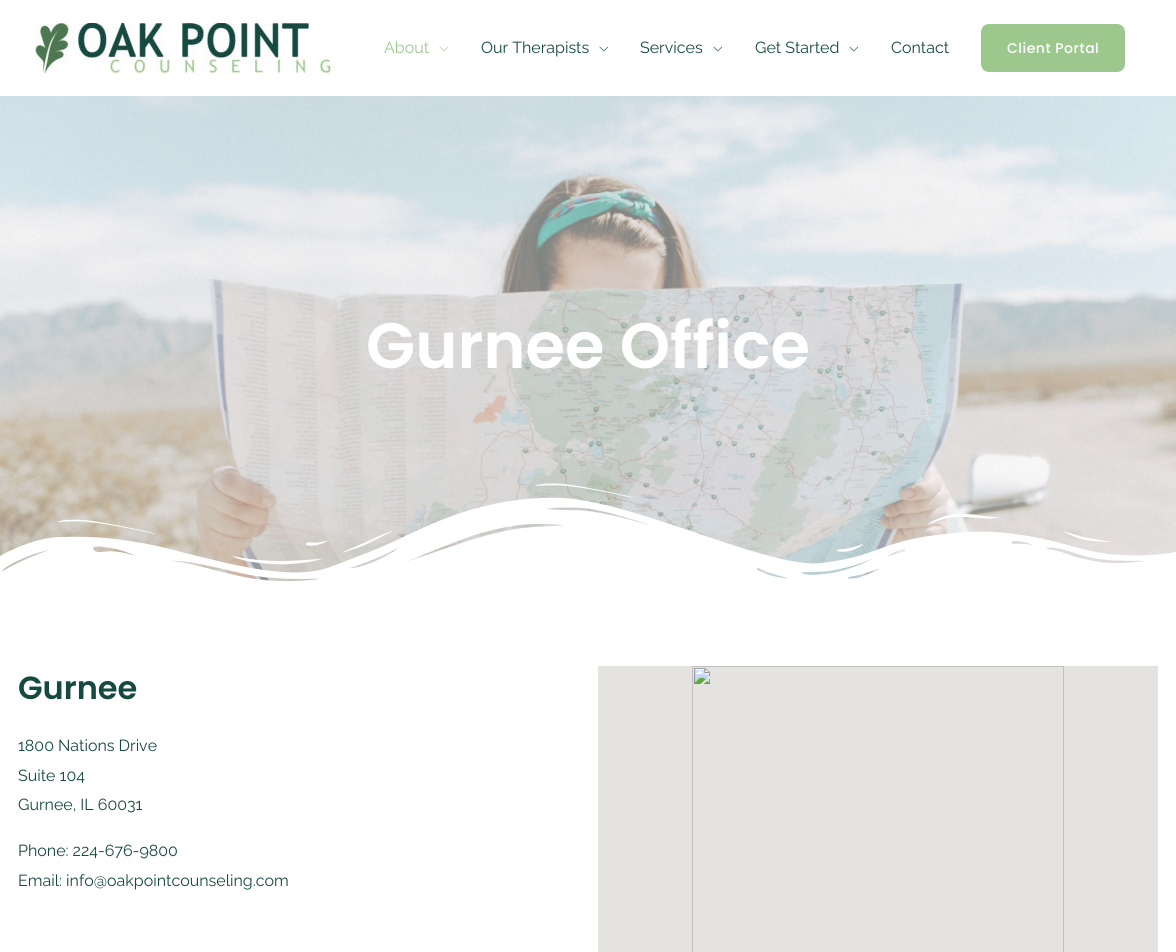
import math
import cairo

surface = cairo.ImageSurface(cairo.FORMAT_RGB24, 1176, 952)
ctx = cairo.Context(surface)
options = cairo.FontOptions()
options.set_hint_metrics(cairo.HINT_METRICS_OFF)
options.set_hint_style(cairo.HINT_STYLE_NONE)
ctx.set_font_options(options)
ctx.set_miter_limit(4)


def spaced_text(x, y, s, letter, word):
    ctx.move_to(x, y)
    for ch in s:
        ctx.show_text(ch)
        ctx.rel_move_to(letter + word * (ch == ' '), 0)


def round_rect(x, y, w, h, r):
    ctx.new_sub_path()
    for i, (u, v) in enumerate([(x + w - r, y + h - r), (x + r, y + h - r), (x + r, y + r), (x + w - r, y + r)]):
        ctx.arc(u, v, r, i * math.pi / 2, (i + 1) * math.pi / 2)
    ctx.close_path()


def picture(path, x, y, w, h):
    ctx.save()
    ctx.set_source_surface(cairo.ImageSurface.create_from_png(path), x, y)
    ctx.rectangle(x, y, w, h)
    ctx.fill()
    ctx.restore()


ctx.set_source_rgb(1, 1, 1)
ctx.paint()
picture("img1.png", 35, 23, 296, 50)
ctx.select_font_face("Raleway Thin")
ctx.set_font_size(16)
ctx.set_source_rgb(0.616, 0.784, 0.553)
ctx.move_to(384, 53)
ctx.show_text("About")
picture("img2.png", 439, 46, 9, 6)
ctx.set_source_rgb(0.086, 0.29, 0.255)
ctx.move_to(481, 53)
ctx.show_text("Our Therapists")
picture("img3.png", 599, 46, 9, 6)
ctx.move_to(640, 53)
ctx.show_text("Services")
picture("img3.png", 713, 46, 9, 6)
ctx.move_to(755, 53)
ctx.show_text("Get Started")
picture("img3.png", 849, 46, 9, 6)
ctx.move_to(891, 53)
ctx.show_text("Contact")
ctx.set_source_rgb(0.616, 0.784, 0.553)
round_rect(981, 24, 144, 48, 8)
ctx.fill()
ctx.select_font_face("Poppins Medium")
ctx.set_font_size(14)
ctx.set_source_rgb(1, 1, 1)
spaced_text(1007, 53, "Client Portal", 0.5, 0)
picture("img4.png", 0, 96, 1176, 486)
ctx.select_font_face("Poppins SemiBold")
ctx.set_font_size(64)
ctx.move_to(366, 368)
ctx.show_text("Gurnee Office")
picture("img5.png", 0, 483, 1176, 113)
ctx.set_font_size(32)
ctx.set_source_rgb(0.086, 0.29, 0.255)
ctx.move_to(18, 699)
ctx.show_text("Gurnee")
ctx.select_font_face("Raleway Thin")
ctx.set_font_size(16)
ctx.move_to(18, 751)
ctx.show_text("1800 Nations Drive")
ctx.move_to(18, 781)
ctx.show_text("Suite 104")
ctx.move_to(18, 810)
ctx.show_text("Gurnee, IL 60031")
ctx.move_to(18, 856)
ctx.show_text("Phone: 224-676-9800")
ctx.move_to(18, 886)
ctx.show_text("Email: info@oakpointcounseling.com")
picture("img6.png", 598, 666, 560, 286)
surface.write_to_png("page.png")
